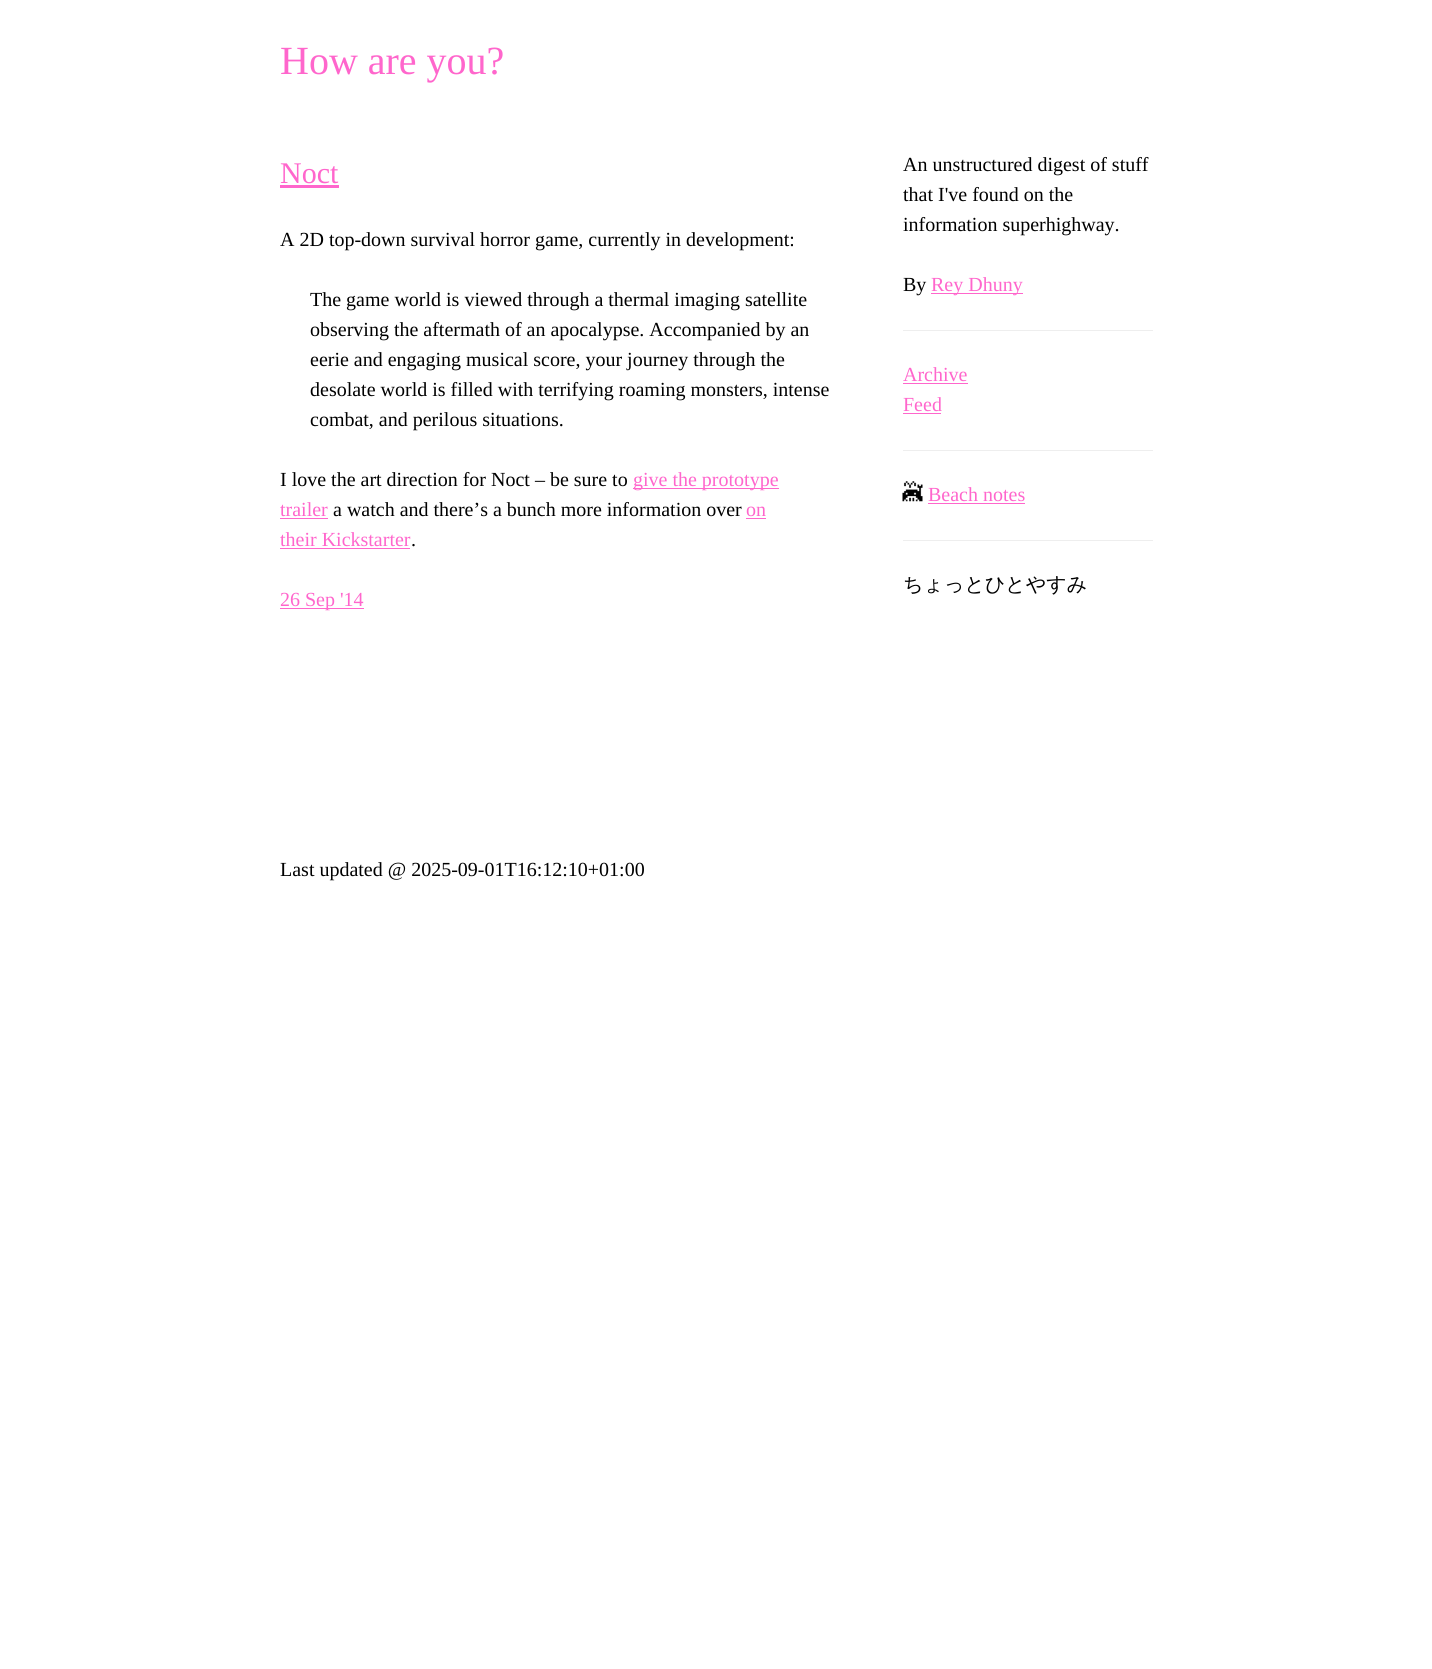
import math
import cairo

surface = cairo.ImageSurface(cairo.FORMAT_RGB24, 1432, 1669)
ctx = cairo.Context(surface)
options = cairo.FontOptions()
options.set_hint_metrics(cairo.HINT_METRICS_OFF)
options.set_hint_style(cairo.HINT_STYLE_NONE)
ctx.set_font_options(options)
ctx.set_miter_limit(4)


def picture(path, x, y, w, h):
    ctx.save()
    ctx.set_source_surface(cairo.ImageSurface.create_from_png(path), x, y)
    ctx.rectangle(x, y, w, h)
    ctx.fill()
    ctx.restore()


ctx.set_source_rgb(1, 1, 1)
ctx.paint()
ctx.select_font_face("Liberation Serif")
ctx.set_font_size(40)
ctx.set_source_rgb(1, 0.4, 0.8)
ctx.move_to(280, 74)
ctx.show_text("How are you?")
ctx.set_font_size(30)
ctx.move_to(280, 183)
ctx.show_text("Noct")
ctx.rectangle(280, 185, 59, 3)
ctx.fill()
ctx.set_font_size(20)
ctx.set_source_rgb(0, 0, 0)
ctx.move_to(280, 246)
ctx.show_text("A 2D top-down survival horror game, currently in development:")
ctx.move_to(310, 306)
ctx.show_text("The game world is viewed through a thermal imaging satellite")
ctx.move_to(310, 336)
ctx.show_text("observing the aftermath of an apocalypse. Accompanied by an")
ctx.move_to(310, 366)
ctx.show_text("eerie and engaging musical score, your journey through the")
ctx.move_to(310, 396)
ctx.show_text("desolate world is filled with terrifying roaming monsters, intense")
ctx.move_to(310, 426)
ctx.show_text("combat, and perilous situations.")
ctx.move_to(280, 486)
ctx.show_text("I love the art direction for Noct – be sure to")
ctx.set_source_rgb(1, 0.4, 0.8)
ctx.rectangle(633, 488, 146, 1)
ctx.fill()
ctx.move_to(633, 486)
ctx.show_text("give the prototype")
ctx.move_to(280, 516)
ctx.show_text("trailer")
ctx.rectangle(280, 518, 48, 1)
ctx.fill()
ctx.set_source_rgb(0, 0, 0)
ctx.move_to(333, 516)
ctx.show_text("a watch and there’s a bunch more information over")
ctx.set_source_rgb(1, 0.4, 0.8)
ctx.move_to(746, 516)
ctx.show_text("on")
ctx.rectangle(746, 518, 20, 1)
ctx.fill()
ctx.move_to(280, 546)
ctx.show_text("their Kickstarter")
ctx.rectangle(280, 548, 130, 1)
ctx.fill()
ctx.set_source_rgb(0, 0, 0)
ctx.move_to(411, 546)
ctx.show_text(".")
ctx.set_source_rgb(1, 0.4, 0.8)
ctx.rectangle(280, 608, 84, 1)
ctx.fill()
ctx.move_to(280, 606)
ctx.show_text("26 Sep '14")
ctx.set_source_rgb(0, 0, 0)
ctx.move_to(903, 171)
ctx.show_text("An unstructured digest of stuff")
ctx.move_to(903, 201)
ctx.show_text("that I've found on the")
ctx.move_to(903, 231)
ctx.show_text("information superhighway.")
ctx.move_to(903, 291)
ctx.show_text("By")
ctx.set_source_rgb(1, 0.4, 0.8)
ctx.rectangle(931, 293, 92, 1)
ctx.fill()
ctx.move_to(931, 291)
ctx.show_text("Rey Dhuny")
ctx.set_source_rgb(0.933, 0.933, 0.933)
ctx.rectangle(903, 330, 250, 1)
ctx.fill()
ctx.set_source_rgb(1, 0.4, 0.8)
ctx.move_to(903, 381)
ctx.show_text("Archive")
ctx.rectangle(903, 383, 65, 1)
ctx.fill()
ctx.move_to(903, 411)
ctx.show_text("Feed")
ctx.rectangle(903, 413, 38, 1)
ctx.fill()
ctx.set_source_rgb(0.933, 0.933, 0.933)
ctx.rectangle(903, 450, 250, 1)
ctx.fill()
picture("img1.png", 902, 481, 21, 21)
ctx.set_source_rgb(1, 0.4, 0.8)
ctx.move_to(928, 501)
ctx.show_text("Beach notes")
ctx.rectangle(928, 503, 97, 1)
ctx.fill()
ctx.set_source_rgb(0.933, 0.933, 0.933)
ctx.rectangle(903, 540, 250, 1)
ctx.fill()
ctx.select_font_face("WenQuanYi Zen Hei Medium")
ctx.set_source_rgb(0, 0, 0)
ctx.move_to(903, 591)
ctx.show_text("ちょっとひとやすみ")
ctx.select_font_face("Liberation Serif")
ctx.move_to(280, 876)
ctx.show_text("Last updated @ 2025-09-01T16:12:10+01:00")
surface.write_to_png("page.png")
